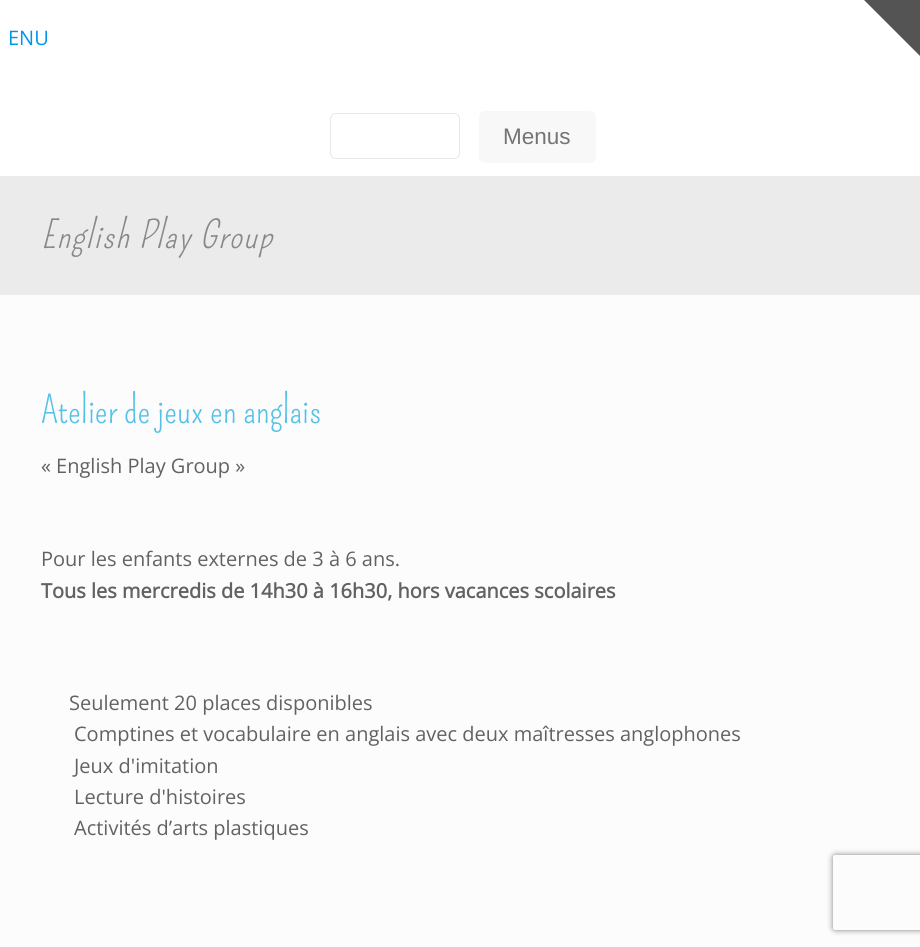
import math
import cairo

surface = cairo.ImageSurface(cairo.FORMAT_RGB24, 920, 947)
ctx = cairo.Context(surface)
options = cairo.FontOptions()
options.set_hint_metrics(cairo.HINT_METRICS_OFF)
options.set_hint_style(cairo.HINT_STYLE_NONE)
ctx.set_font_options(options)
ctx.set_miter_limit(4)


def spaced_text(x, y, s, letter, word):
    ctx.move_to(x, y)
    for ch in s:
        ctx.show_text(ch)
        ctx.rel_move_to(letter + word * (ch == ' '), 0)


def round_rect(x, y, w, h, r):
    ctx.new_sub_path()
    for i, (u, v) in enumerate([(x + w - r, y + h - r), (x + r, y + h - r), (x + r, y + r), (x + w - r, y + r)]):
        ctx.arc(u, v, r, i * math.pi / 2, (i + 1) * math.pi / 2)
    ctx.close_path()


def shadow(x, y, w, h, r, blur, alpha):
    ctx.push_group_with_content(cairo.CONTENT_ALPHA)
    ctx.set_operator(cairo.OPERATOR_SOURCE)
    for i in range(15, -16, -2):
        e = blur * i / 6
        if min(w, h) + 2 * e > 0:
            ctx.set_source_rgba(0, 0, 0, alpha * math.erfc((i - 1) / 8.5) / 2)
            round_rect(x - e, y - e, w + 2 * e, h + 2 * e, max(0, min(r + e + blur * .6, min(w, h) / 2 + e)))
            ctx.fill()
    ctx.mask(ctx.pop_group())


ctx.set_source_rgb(0.988, 0.988, 0.988)
ctx.paint()
ctx.set_source_rgb(1, 1, 1)
ctx.rectangle(0, 0, 920, 176)
ctx.fill()
ctx.select_font_face("Open Sans")
ctx.set_font_size(20)
ctx.set_source_rgb(0, 0.584, 0.922)
ctx.move_to(8, 45)
ctx.show_text("ENU")
round_rect(330.5, 113.5, 129, 45, 5.5)
ctx.set_source_rgb(0.902, 0.902, 0.902)
ctx.set_line_width(1)
ctx.stroke()
ctx.set_source_rgb(0.969, 0.969, 0.969)
round_rect(479, 111, 117, 52, 6)
ctx.fill()
ctx.select_font_face("Liberation Sans")
ctx.set_font_size(22.5)
ctx.set_source_rgb(0.455, 0.455, 0.455)
ctx.move_to(503, 144)
ctx.show_text("Menus")
ctx.set_source_rgb(0.918, 0.918, 0.918)
ctx.rectangle(0, 176, 920, 119)
ctx.fill()
ctx.select_font_face("Pompiere", cairo.FONT_SLANT_ITALIC)
ctx.set_font_size(37.5)
ctx.set_source_rgb(0.533, 0.533, 0.533)
spaced_text(41, 248, "English Play Group", 1.25, 0)
ctx.select_font_face("Pompiere")
ctx.set_source_rgb(0.333, 0.757, 0.906)
ctx.move_to(41, 423)
ctx.show_text("Atelier de jeux en anglais")
ctx.select_font_face("Open Sans")
ctx.set_font_size(20)
ctx.set_source_rgb(0.384, 0.384, 0.384)
ctx.move_to(41, 473)
ctx.show_text("« English Play Group »")
ctx.move_to(41, 566)
ctx.show_text("Pour les enfants externes de 3 à 6 ans.")
ctx.select_font_face("Open Sans", cairo.FONT_SLANT_NORMAL, cairo.FONT_WEIGHT_BOLD)
ctx.move_to(41, 598)
ctx.show_text("Tous les mercredis de 14h30 à 16h30, hors vacances scolaires")
ctx.select_font_face("Open Sans")
ctx.move_to(69, 710)
ctx.show_text("Seulement 20 places disponibles")
ctx.move_to(74, 741)
ctx.show_text("Comptines et vocabulaire en anglais avec deux maîtresses anglophones")
ctx.move_to(74, 773)
ctx.show_text("Jeux d'imitation")
ctx.move_to(74, 804)
ctx.show_text("Lecture d'histoires")
ctx.move_to(74, 835)
ctx.show_text("Activités d’arts plastiques")
ctx.set_source_rgb(0.329, 0.329, 0.329)
ctx.new_path()
ctx.move_to(920, 0)
ctx.line_to(920, 56)
ctx.line_to(864, 0)
ctx.close_path()
ctx.fill()
ctx.save()
ctx.set_fill_rule(cairo.FILL_RULE_EVEN_ODD)
ctx.new_path()
ctx.move_to(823, 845)
ctx.line_to(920, 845)
ctx.line_to(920, 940)
ctx.line_to(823, 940)
ctx.close_path()
ctx.move_to(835.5, 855)
ctx.line_to(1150.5, 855)
ctx.curve_to(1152, 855, 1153, 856, 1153, 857.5)
ctx.line_to(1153, 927.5)
ctx.curve_to(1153, 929, 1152, 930, 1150.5, 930)
ctx.line_to(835.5, 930)
ctx.curve_to(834, 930, 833, 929, 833, 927.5)
ctx.line_to(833, 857.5)
ctx.curve_to(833, 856, 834, 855, 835.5, 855)
ctx.close_path()
ctx.clip()
ctx.set_source_rgb(0.502, 0.502, 0.502)
shadow(833, 855, 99, 75, 2.5, 3, 1)
ctx.restore()
surface.write_to_png("page.png")
